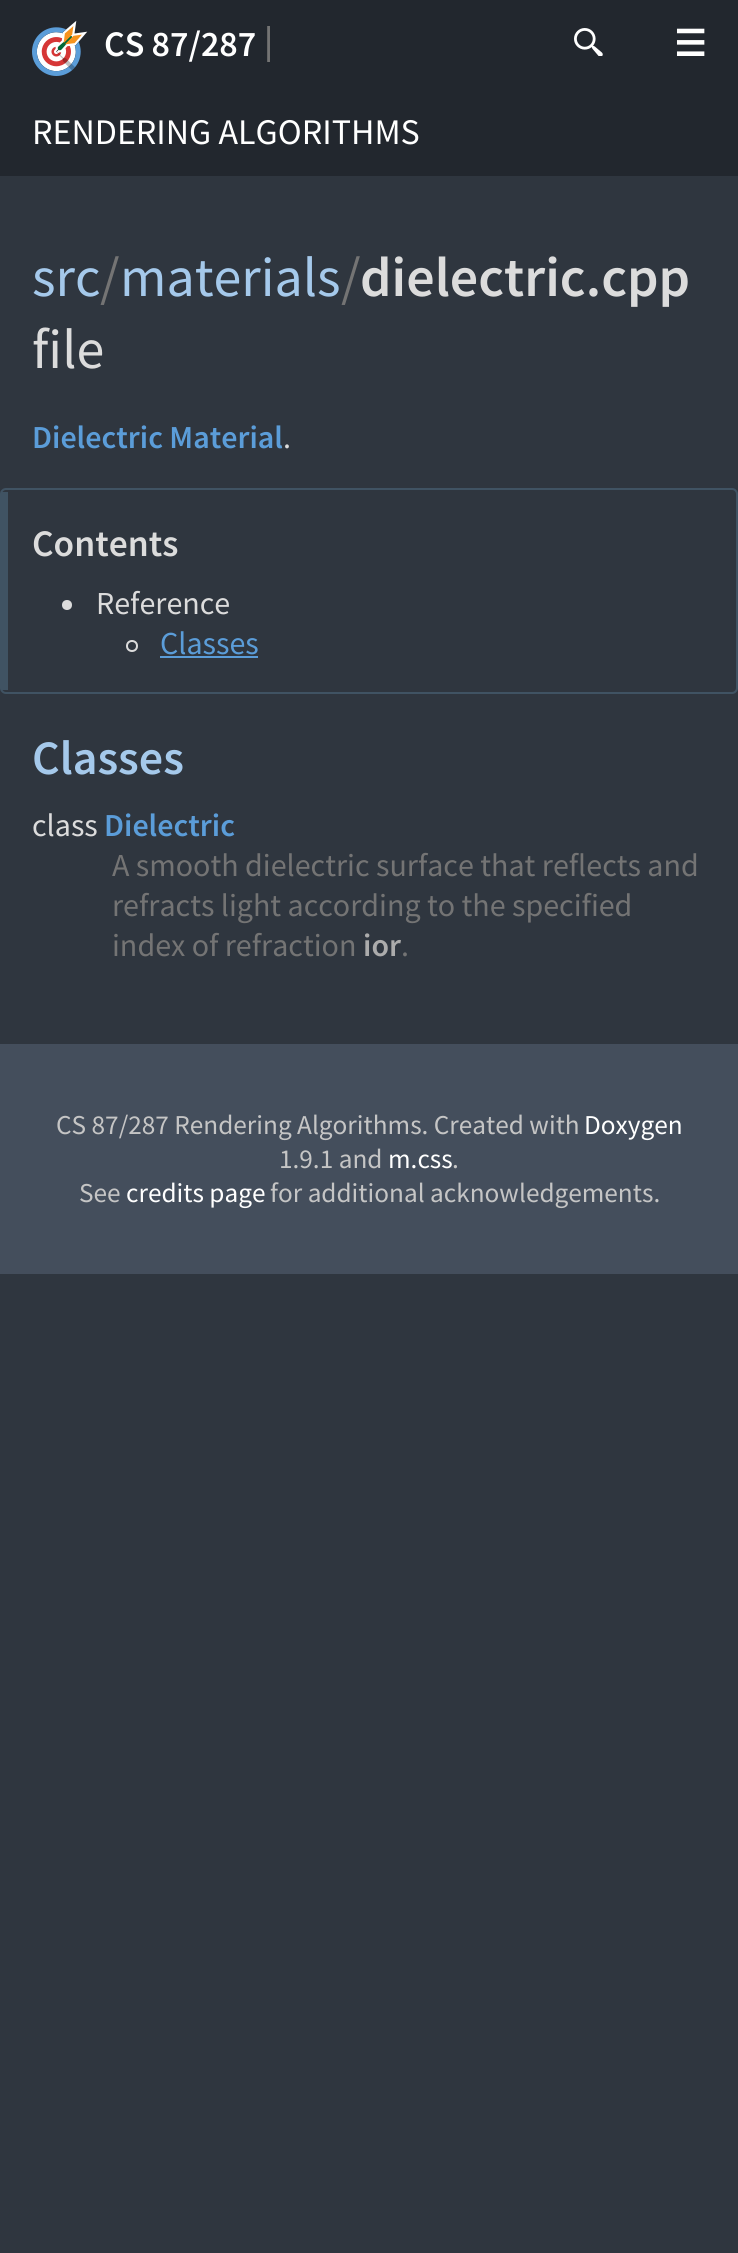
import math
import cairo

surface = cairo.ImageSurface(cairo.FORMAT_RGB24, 738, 2253)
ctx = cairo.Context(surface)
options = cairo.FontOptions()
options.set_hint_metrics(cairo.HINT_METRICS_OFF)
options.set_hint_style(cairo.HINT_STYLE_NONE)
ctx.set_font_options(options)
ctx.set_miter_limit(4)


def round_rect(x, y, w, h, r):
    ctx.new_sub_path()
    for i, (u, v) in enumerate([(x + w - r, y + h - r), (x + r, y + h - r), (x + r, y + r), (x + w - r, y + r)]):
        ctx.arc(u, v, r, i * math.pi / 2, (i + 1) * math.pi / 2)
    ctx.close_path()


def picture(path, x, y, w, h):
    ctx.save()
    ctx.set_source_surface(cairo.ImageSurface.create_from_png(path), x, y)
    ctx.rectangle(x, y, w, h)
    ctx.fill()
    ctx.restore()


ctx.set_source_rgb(0.184, 0.212, 0.247)
ctx.paint()
ctx.set_source_rgb(0.133, 0.153, 0.18)
ctx.rectangle(0, 0, 738, 176)
ctx.fill()
picture("img1.png", 32, 20, 56, 56)
ctx.select_font_face("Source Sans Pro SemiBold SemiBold")
ctx.set_font_size(36)
ctx.set_source_rgb(1, 1, 1)
ctx.move_to(104, 56)
ctx.show_text("CS 87/287")
ctx.set_source_rgb(0.455, 0.455, 0.455)
ctx.move_to(264, 53)
ctx.show_text("|")
ctx.select_font_face("Source Sans Pro")
ctx.set_source_rgb(1, 1, 1)
ctx.move_to(32, 144)
ctx.show_text("RENDERING ALGORITHMS")
picture("img2.png", 574, 28, 29, 28)
ctx.select_font_face("DejaVu Sans", cairo.FONT_SLANT_NORMAL, cairo.FONT_WEIGHT_BOLD)
ctx.move_to(674, 56)
ctx.show_text("☰")
ctx.select_font_face("Source Sans Pro")
ctx.set_font_size(56)
ctx.set_source_rgb(0.647, 0.788, 0.918)
ctx.move_to(32, 296)
ctx.show_text("src")
ctx.set_source_rgb(0.455, 0.455, 0.455)
ctx.move_to(100, 296)
ctx.show_text("/")
ctx.set_source_rgb(0.647, 0.788, 0.918)
ctx.move_to(120, 296)
ctx.show_text("materials")
ctx.set_source_rgb(0.455, 0.455, 0.455)
ctx.move_to(341, 296)
ctx.show_text("/")
ctx.select_font_face("Source Sans Pro SemiBold SemiBold")
ctx.set_source_rgb(0.863, 0.863, 0.863)
ctx.move_to(360, 296)
ctx.show_text("dielectric.cpp")
ctx.select_font_face("Source Sans Pro")
ctx.move_to(32, 368)
ctx.show_text("file")
ctx.select_font_face("Source Sans Pro SemiBold SemiBold")
ctx.set_font_size(32)
ctx.set_source_rgb(0.357, 0.616, 0.851)
ctx.move_to(32, 448)
ctx.show_text("Dielectric Material")
ctx.select_font_face("Source Sans Pro")
ctx.set_source_rgb(0.863, 0.863, 0.863)
ctx.move_to(283, 448)
ctx.show_text(".")
round_rect(1, 489, 736, 204, 5)
ctx.set_source_rgb(0.251, 0.325, 0.388)
ctx.stroke()
ctx.rectangle(2, 492, 6, 198)
ctx.fill()
ctx.select_font_face("Source Sans Pro SemiBold SemiBold")
ctx.set_font_size(37.5)
ctx.set_source_rgb(0.863, 0.863, 0.863)
ctx.move_to(32, 556)
ctx.show_text("Contents")
ctx.new_path()
ctx.arc(67, 605, 5, 0, 2 * math.pi)
ctx.fill()
ctx.select_font_face("Source Sans Pro")
ctx.set_font_size(32)
ctx.move_to(96, 614)
ctx.show_text("Reference")
ctx.new_path()
ctx.arc(132, 646, 5, 0, 2 * math.pi)
ctx.stroke()
ctx.set_source_rgb(0.357, 0.616, 0.851)
ctx.move_to(160, 654)
ctx.show_text("Classes")
ctx.rectangle(160, 656, 98, 2)
ctx.fill()
ctx.select_font_face("Source Sans Pro SemiBold SemiBold")
ctx.set_font_size(48)
ctx.set_source_rgb(0.647, 0.788, 0.918)
ctx.move_to(32, 774)
ctx.show_text("Classes")
ctx.select_font_face("Source Sans Pro")
ctx.set_font_size(32)
ctx.set_source_rgb(0.863, 0.863, 0.863)
ctx.move_to(32, 836)
ctx.show_text("class")
ctx.select_font_face("Source Sans Pro SemiBold SemiBold")
ctx.set_source_rgb(0.357, 0.616, 0.851)
ctx.move_to(104, 836)
ctx.show_text("Dielectric")
ctx.select_font_face("Source Sans Pro")
ctx.set_source_rgb(0.455, 0.455, 0.455)
ctx.move_to(112, 876)
ctx.show_text("A smooth dielectric surface that reflects and")
ctx.move_to(112, 916)
ctx.show_text("refracts light according to the specified")
ctx.move_to(112, 956)
ctx.show_text("index of refraction")
ctx.select_font_face("Source Sans Pro SemiBold SemiBold")
ctx.set_source_rgb(0.675, 0.675, 0.675)
ctx.move_to(363, 956)
ctx.show_text("ior")
ctx.select_font_face("Source Sans Pro")
ctx.set_source_rgb(0.455, 0.455, 0.455)
ctx.move_to(401, 956)
ctx.show_text(".")
ctx.set_source_rgb(0.267, 0.306, 0.361)
ctx.rectangle(0, 1044, 738, 230)
ctx.fill()
ctx.set_font_size(27.25)
ctx.set_source_rgb(0.773, 0.773, 0.773)
ctx.move_to(56, 1134)
ctx.show_text("CS 87/287 Rendering Algorithms. Created with")
ctx.set_source_rgb(1, 1, 1)
ctx.move_to(584, 1134)
ctx.show_text("Doxygen")
ctx.set_source_rgb(0.773, 0.773, 0.773)
ctx.move_to(279, 1168)
ctx.show_text("1.9.1 and")
ctx.set_source_rgb(1, 1, 1)
ctx.move_to(388, 1168)
ctx.show_text("m.css")
ctx.set_source_rgb(0.773, 0.773, 0.773)
ctx.move_to(452, 1168)
ctx.show_text(".")
ctx.move_to(79, 1202)
ctx.show_text("See")
ctx.set_source_rgb(1, 1, 1)
ctx.move_to(126, 1202)
ctx.show_text("credits page")
ctx.set_source_rgb(0.773, 0.773, 0.773)
ctx.move_to(270, 1202)
ctx.show_text("for additional acknowledgements.")
surface.write_to_png("page.png")
